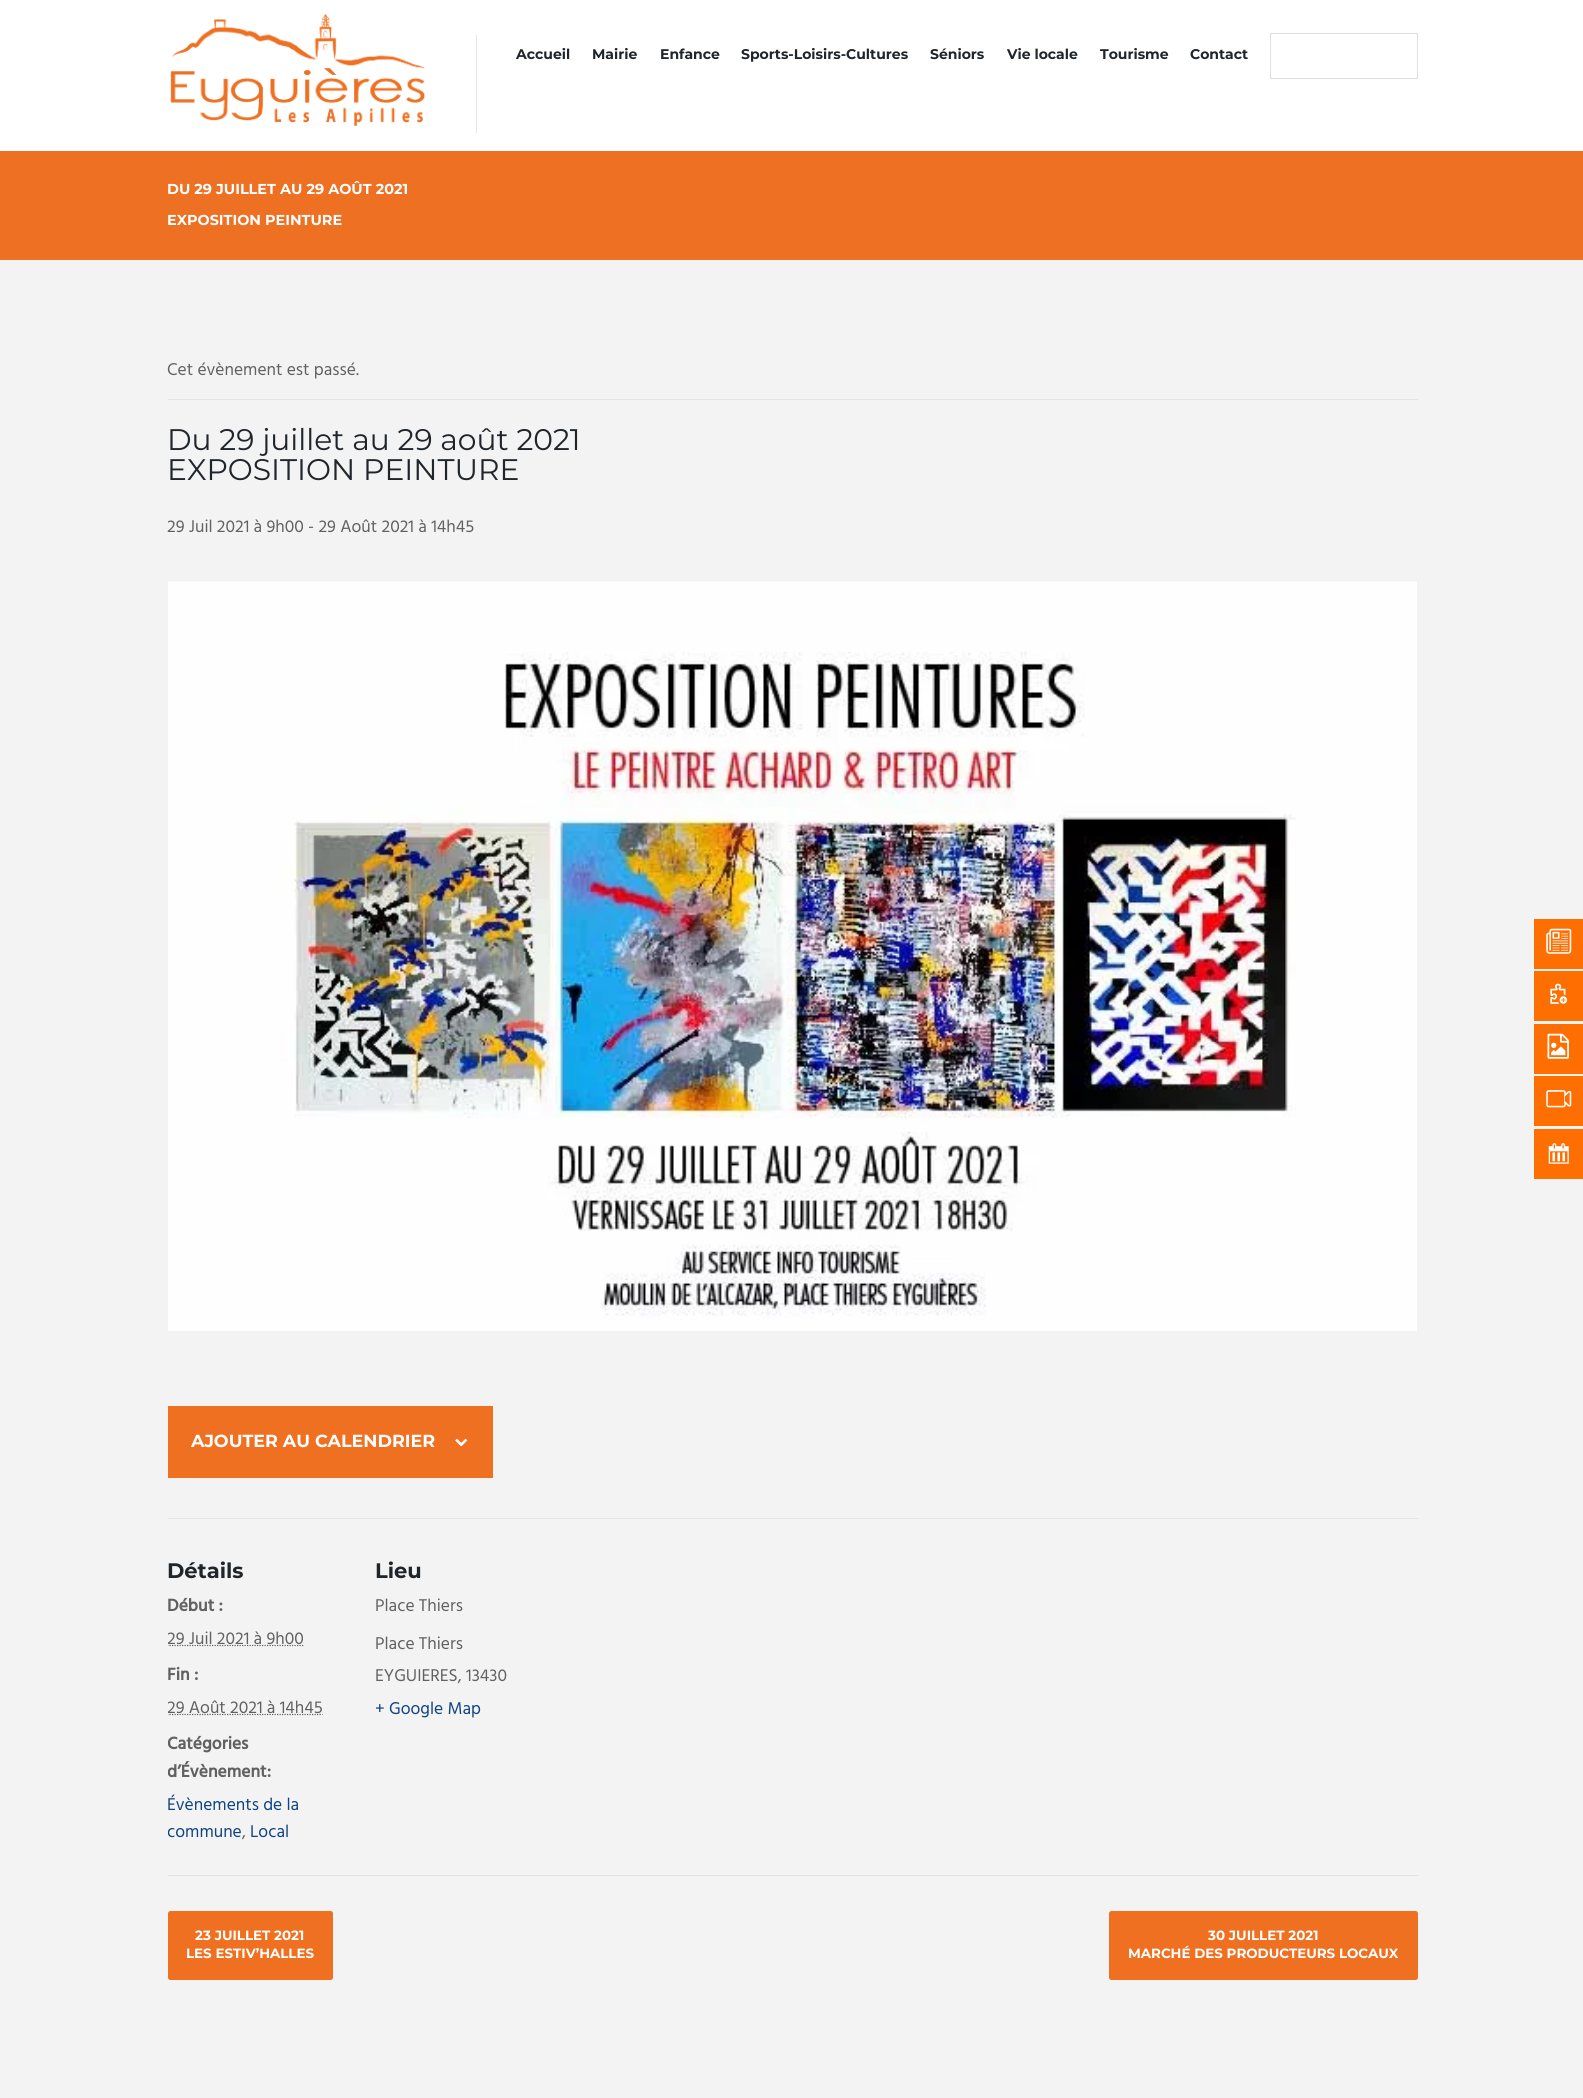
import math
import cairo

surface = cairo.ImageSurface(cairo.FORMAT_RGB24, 1583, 2098)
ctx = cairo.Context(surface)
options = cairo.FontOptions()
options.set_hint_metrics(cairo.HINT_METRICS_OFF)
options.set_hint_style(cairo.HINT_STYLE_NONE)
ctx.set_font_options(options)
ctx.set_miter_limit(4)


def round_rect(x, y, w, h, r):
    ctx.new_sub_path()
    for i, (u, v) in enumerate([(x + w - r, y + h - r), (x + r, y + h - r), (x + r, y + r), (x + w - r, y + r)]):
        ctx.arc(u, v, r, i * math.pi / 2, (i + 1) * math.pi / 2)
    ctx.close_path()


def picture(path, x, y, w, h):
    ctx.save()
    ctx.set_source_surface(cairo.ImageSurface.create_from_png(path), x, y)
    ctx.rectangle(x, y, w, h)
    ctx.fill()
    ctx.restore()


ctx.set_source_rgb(0.953, 0.953, 0.953)
ctx.paint()
ctx.set_source_rgb(1, 1, 1)
ctx.rectangle(0, 0, 1583, 151)
ctx.fill()
picture("img1.png", 170, 13, 256, 113)
ctx.set_source_rgb(0.902, 0.902, 0.902)
ctx.rectangle(476, 35, 1, 98)
ctx.fill()
ctx.select_font_face("Montserrat", cairo.FONT_SLANT_NORMAL, cairo.FONT_WEIGHT_BOLD)
ctx.set_font_size(14)
ctx.set_source_rgb(0.122, 0.145, 0.169)
ctx.move_to(516, 59)
ctx.show_text("Accueil")
ctx.move_to(592, 59)
ctx.show_text("Mairie")
ctx.move_to(660, 59)
ctx.show_text("Enfance")
ctx.move_to(741, 59)
ctx.show_text("Sports-Loisirs-Cultures")
ctx.move_to(930, 59)
ctx.show_text("Séniors")
ctx.move_to(1007, 59)
ctx.show_text("Vie locale")
ctx.move_to(1100, 59)
ctx.show_text("Tourisme")
ctx.move_to(1190, 59)
ctx.show_text("Contact")
ctx.rectangle(1270.5, 33.5, 147, 45)
ctx.set_source_rgb(0.875, 0.875, 0.875)
ctx.set_line_width(1)
ctx.stroke()
ctx.set_source_rgb(0.933, 0.439, 0.137)
ctx.rectangle(0, 151, 1583, 109)
ctx.fill()
ctx.set_font_size(14.4)
ctx.set_source_rgb(1, 1, 1)
ctx.move_to(167, 194)
ctx.show_text("DU 29 JUILLET AU 29 AOÛT 2021")
ctx.move_to(167, 225)
ctx.show_text("EXPOSITION PEINTURE")
ctx.set_source_rgb(0.894, 0.894, 0.894)
ctx.rectangle(168, 399, 1250, 1)
ctx.fill()
ctx.select_font_face("Hind")
ctx.set_font_size(17.5)
ctx.set_source_rgb(0.38, 0.38, 0.38)
ctx.move_to(167, 375)
ctx.show_text("Cet évènement est passé.")
ctx.select_font_face("Montserrat")
ctx.set_font_size(29.75)
ctx.set_source_rgb(0.122, 0.145, 0.169)
ctx.move_to(167, 450)
ctx.show_text("Du 29 juillet au 29 août 2021")
ctx.move_to(167, 480)
ctx.show_text("EXPOSITION PEINTURE")
ctx.select_font_face("Hind")
ctx.set_font_size(17.5)
ctx.set_source_rgb(0.38, 0.38, 0.38)
ctx.move_to(167, 532)
ctx.show_text("29 Juil 2021 à 9h00 - 29 Août 2021 à 14h45")
picture("img2.png", 168, 581, 1249, 750)
ctx.set_source_rgb(0.937, 0.439, 0.129)
ctx.rectangle(168, 1406, 325, 72)
ctx.fill()
ctx.select_font_face("Montserrat", cairo.FONT_SLANT_NORMAL, cairo.FONT_WEIGHT_BOLD)
ctx.set_source_rgb(1, 1, 1)
ctx.move_to(191, 1447)
ctx.show_text("AJOUTER AU CALENDRIER")
picture("img3.png", 455, 1439, 13, 7)
ctx.set_source_rgb(0.894, 0.894, 0.894)
ctx.rectangle(168, 1518, 1250, 1)
ctx.fill()
ctx.set_font_size(21)
ctx.set_source_rgb(0.122, 0.145, 0.169)
ctx.move_to(167, 1578)
ctx.show_text("Détails")
ctx.select_font_face("Hind", cairo.FONT_SLANT_NORMAL, cairo.FONT_WEIGHT_BOLD)
ctx.set_font_size(17.5)
ctx.set_source_rgb(0.38, 0.38, 0.38)
ctx.move_to(167, 1611)
ctx.show_text("Début :")
ctx.save()
ctx.rectangle(168, 581, 1250, 1294)
ctx.clip()
ctx.new_path()
ctx.move_to(167, 1645.5)
ctx.line_to(303.5, 1645.5)
ctx.set_line_width(1.2)
ctx.set_dash([1.25, 1.25])
ctx.stroke()
ctx.select_font_face("Hind")
ctx.move_to(167, 1644)
ctx.show_text("29 Juil 2021 à 9h00")
ctx.restore()
ctx.move_to(167, 1680)
ctx.show_text("Fin :")
ctx.save()
ctx.rectangle(168, 581, 1250, 1294)
ctx.clip()
ctx.new_path()
ctx.move_to(167, 1714.5)
ctx.line_to(322.5, 1714.5)
ctx.set_line_width(1.2)
ctx.set_dash([1.25, 1.25])
ctx.stroke()
ctx.select_font_face("Hind")
ctx.move_to(167, 1713)
ctx.show_text("29 Août 2021 à 14h45")
ctx.select_font_face("Hind", cairo.FONT_SLANT_NORMAL, cairo.FONT_WEIGHT_BOLD)
ctx.move_to(167, 1749)
ctx.show_text("Catégories")
ctx.move_to(167, 1777)
ctx.show_text("d’Évènement:")
ctx.restore()
ctx.select_font_face("Hind")
ctx.set_source_rgb(0.063, 0.263, 0.51)
ctx.move_to(167, 1810)
ctx.show_text("Évènements de la")
ctx.save()
ctx.rectangle(168, 581, 1250, 1294)
ctx.clip()
ctx.move_to(167, 1837)
ctx.show_text("commune")
ctx.restore()
ctx.set_source_rgb(0.38, 0.38, 0.38)
ctx.move_to(242, 1837)
ctx.show_text(",")
ctx.set_source_rgb(0.063, 0.263, 0.51)
ctx.move_to(250, 1837)
ctx.show_text("Local")
ctx.select_font_face("Montserrat", cairo.FONT_SLANT_NORMAL, cairo.FONT_WEIGHT_BOLD)
ctx.set_font_size(21)
ctx.set_source_rgb(0.122, 0.145, 0.169)
ctx.move_to(375, 1578)
ctx.show_text("Lieu")
ctx.select_font_face("Hind")
ctx.set_font_size(17.5)
ctx.set_source_rgb(0.38, 0.38, 0.38)
ctx.move_to(375, 1611)
ctx.show_text("Place Thiers")
ctx.move_to(375, 1649)
ctx.show_text("Place Thiers")
ctx.move_to(375, 1681)
ctx.show_text("EYGUIERES, 13430")
ctx.set_source_rgb(0.063, 0.263, 0.51)
ctx.move_to(375, 1714)
ctx.show_text("+ Google Map")
ctx.set_source_rgb(0.894, 0.894, 0.894)
ctx.rectangle(168, 1875, 1250, 1)
ctx.fill()
ctx.set_source_rgb(0.937, 0.439, 0.129)
round_rect(169.5, 1912.5, 162, 66, 1)
ctx.fill_preserve()
ctx.set_line_width(3)
ctx.stroke()
ctx.select_font_face("Montserrat", cairo.FONT_SLANT_NORMAL, cairo.FONT_WEIGHT_BOLD)
ctx.set_font_size(13.4)
ctx.set_source_rgb(1, 1, 1)
ctx.move_to(195, 1940)
ctx.show_text("23 JUILLET 2021")
ctx.move_to(186, 1958)
ctx.show_text("LES ESTIV’HALLES")
ctx.set_source_rgb(0.937, 0.439, 0.129)
round_rect(1110.5, 1912.5, 306, 66, 1)
ctx.fill_preserve()
ctx.stroke()
ctx.set_source_rgb(1, 1, 1)
ctx.move_to(1208, 1940)
ctx.show_text("30 JUILLET 2021")
ctx.move_to(1128, 1958)
ctx.show_text("MARCHÉ DES PRODUCTEURS LOCAUX")
ctx.set_source_rgb(1, 0.431, 0.004)
ctx.rectangle(1534, 919, 49, 50)
ctx.fill()
picture("img4.png", 1546, 928, 26, 26)
ctx.rectangle(1534, 971, 49, 50)
ctx.fill()
picture("img5.png", 1550, 983, 18, 21)
ctx.rectangle(1534, 1024, 49, 50)
ctx.fill()
picture("img6.png", 1547, 1033, 22, 26)
ctx.rectangle(1534, 1076, 49, 50)
ctx.fill()
picture("img7.png", 1546, 1090, 26, 18)
ctx.rectangle(1534, 1129, 49, 50)
ctx.fill()
picture("img8.png", 1548, 1143, 21, 21)
surface.write_to_png("page.png")
